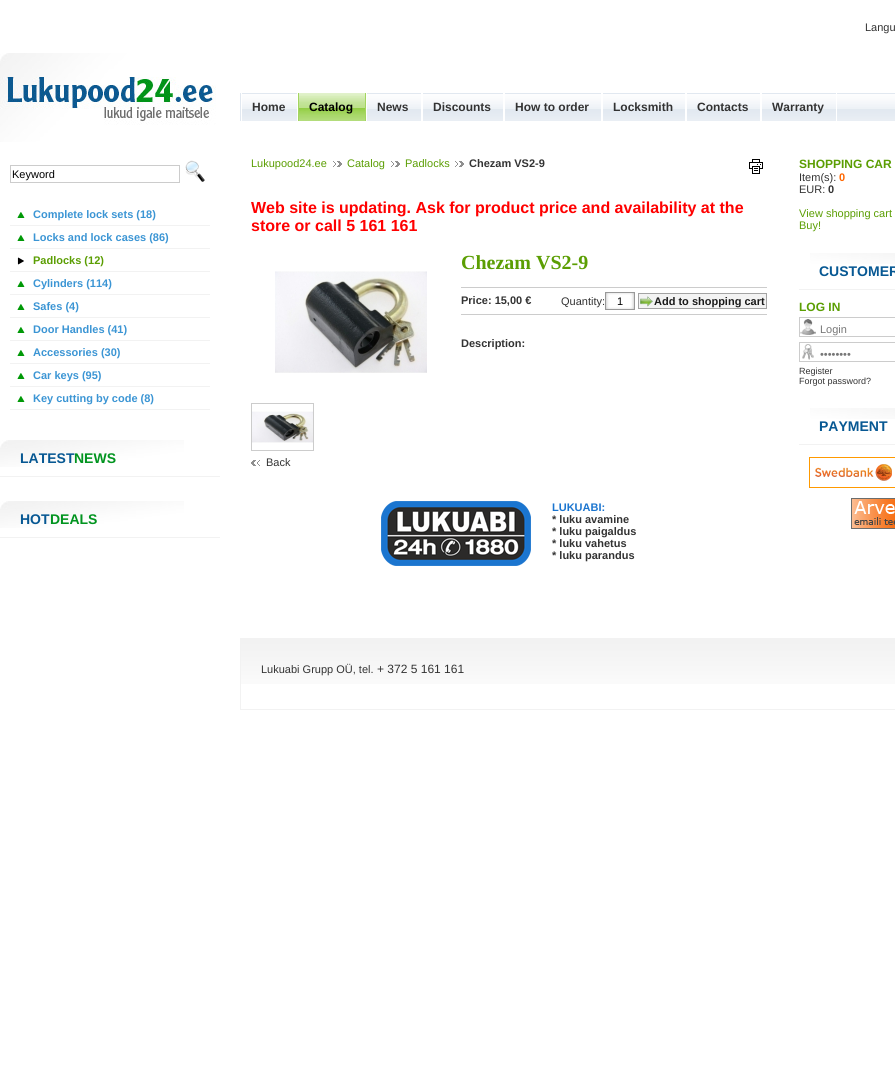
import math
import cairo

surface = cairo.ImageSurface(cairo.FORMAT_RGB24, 895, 1091)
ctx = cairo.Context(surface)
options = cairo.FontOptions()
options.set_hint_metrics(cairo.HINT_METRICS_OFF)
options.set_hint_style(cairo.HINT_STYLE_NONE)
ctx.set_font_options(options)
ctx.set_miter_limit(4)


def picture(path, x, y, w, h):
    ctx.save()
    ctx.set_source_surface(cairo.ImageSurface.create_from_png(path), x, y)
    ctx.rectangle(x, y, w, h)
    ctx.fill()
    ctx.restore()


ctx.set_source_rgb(1, 1, 1)
ctx.paint()
ctx.select_font_face("Liberation Sans")
ctx.set_font_size(11)
ctx.set_source_rgb(0.2, 0.2, 0.2)
ctx.move_to(865, 31)
ctx.show_text("Langu")
picture("img1.png", 0, 53, 216, 89)
ctx.rectangle(10.5, 165.5, 169, 17)
ctx.set_source_rgb(0.8, 0.8, 0.8)
ctx.set_line_width(1)
ctx.stroke()
ctx.set_source_rgb(0, 0, 0)
ctx.move_to(12, 178)
ctx.show_text("Keyword")
picture("img2.png", 185, 160, 20, 22)
picture("img3.png", 17, 212, 8, 6)
ctx.set_source_rgb(0.949, 0.949, 0.949)
ctx.rectangle(10, 225, 200, 1)
ctx.fill()
ctx.select_font_face("Liberation Sans", cairo.FONT_SLANT_NORMAL, cairo.FONT_WEIGHT_BOLD)
ctx.set_source_rgb(0.231, 0.584, 0.831)
ctx.move_to(33, 218)
ctx.show_text("Complete lock sets (18)")
picture("img3.png", 17, 235, 8, 6)
ctx.set_source_rgb(0.949, 0.949, 0.949)
ctx.rectangle(10, 248, 200, 1)
ctx.fill()
ctx.set_source_rgb(0.231, 0.584, 0.831)
ctx.move_to(33, 241)
ctx.show_text("Locks and lock cases (86)")
picture("img4.png", 17, 257, 7, 8)
ctx.set_source_rgb(0.949, 0.949, 0.949)
ctx.rectangle(10, 271, 200, 1)
ctx.fill()
ctx.set_source_rgb(0.357, 0.62, 0.012)
ctx.move_to(33, 264)
ctx.show_text("Padlocks (12)")
picture("img3.png", 17, 281, 8, 6)
ctx.set_source_rgb(0.949, 0.949, 0.949)
ctx.rectangle(10, 294, 200, 1)
ctx.fill()
ctx.set_source_rgb(0.231, 0.584, 0.831)
ctx.move_to(33, 287)
ctx.show_text("Cylinders (114)")
picture("img3.png", 17, 304, 8, 6)
ctx.set_source_rgb(0.949, 0.949, 0.949)
ctx.rectangle(10, 317, 200, 1)
ctx.fill()
ctx.set_source_rgb(0.231, 0.584, 0.831)
ctx.move_to(33, 310)
ctx.show_text("Safes (4)")
picture("img3.png", 17, 327, 8, 6)
ctx.set_source_rgb(0.949, 0.949, 0.949)
ctx.rectangle(10, 340, 200, 1)
ctx.fill()
ctx.set_source_rgb(0.231, 0.584, 0.831)
ctx.move_to(33, 333)
ctx.show_text("Door Handles (41)")
picture("img3.png", 17, 350, 8, 6)
ctx.set_source_rgb(0.949, 0.949, 0.949)
ctx.rectangle(10, 363, 200, 1)
ctx.fill()
ctx.set_source_rgb(0.231, 0.584, 0.831)
ctx.move_to(33, 356)
ctx.show_text("Accessories (30)")
picture("img3.png", 17, 373, 8, 6)
ctx.set_source_rgb(0.949, 0.949, 0.949)
ctx.rectangle(10, 386, 200, 1)
ctx.fill()
ctx.set_source_rgb(0.231, 0.584, 0.831)
ctx.move_to(33, 379)
ctx.show_text("Car keys (95)")
picture("img3.png", 17, 396, 8, 6)
ctx.set_source_rgb(0.949, 0.949, 0.949)
ctx.rectangle(10, 409, 200, 1)
ctx.fill()
ctx.set_source_rgb(0.231, 0.584, 0.831)
ctx.move_to(33, 402)
ctx.show_text("Key cutting by code (8)")
picture("img5.png", 0, 440, 184, 27)
ctx.set_source_rgb(0.949, 0.949, 0.949)
ctx.rectangle(0, 476, 220, 1)
ctx.fill()
ctx.set_font_size(14)
ctx.set_source_rgb(0.031, 0.345, 0.576)
ctx.move_to(20, 463)
ctx.show_text("LATEST")
ctx.set_source_rgb(0.004, 0.58, 0.122)
ctx.move_to(74, 463)
ctx.show_text("NEWS")
picture("img5.png", 0, 501, 184, 27)
ctx.set_source_rgb(0.949, 0.949, 0.949)
ctx.rectangle(0, 537, 220, 1)
ctx.fill()
ctx.set_source_rgb(0.031, 0.345, 0.576)
ctx.move_to(20, 524)
ctx.show_text("HOT")
ctx.set_source_rgb(0.004, 0.58, 0.122)
ctx.move_to(50, 524)
ctx.show_text("DEALS")
picture("img6.png", 242, 93, 653, 28)
ctx.set_source_rgb(0.882, 0.91, 0.941)
ctx.rectangle(240, 93, 1, 28)
ctx.fill()
ctx.set_source_rgb(1, 1, 1)
ctx.rectangle(297, 93, 1, 28)
ctx.fill()
ctx.set_font_size(12)
ctx.set_source_rgb(0.2, 0.2, 0.2)
ctx.move_to(252, 111)
ctx.show_text("Home")
picture("img7.png", 299, 93, 66, 28)
ctx.set_source_rgb(0.639, 0.835, 0.376)
ctx.rectangle(365, 93, 1, 28)
ctx.fill()
ctx.rectangle(298, 93, 1, 28)
ctx.fill()
ctx.set_source_rgb(0, 0, 0)
ctx.move_to(309, 111)
ctx.show_text("Catalog")
ctx.set_source_rgb(1, 1, 1)
ctx.rectangle(421, 93, 2, 28)
ctx.fill()
ctx.rectangle(366, 93, 1, 28)
ctx.fill()
ctx.set_source_rgb(0.2, 0.2, 0.2)
ctx.move_to(377, 111)
ctx.show_text("News")
ctx.set_source_rgb(1, 1, 1)
ctx.rectangle(503, 93, 2, 28)
ctx.fill()
ctx.set_source_rgb(0.2, 0.2, 0.2)
ctx.move_to(433, 111)
ctx.show_text("Discounts")
ctx.set_source_rgb(1, 1, 1)
ctx.rectangle(601, 93, 2, 28)
ctx.fill()
ctx.set_source_rgb(0.2, 0.2, 0.2)
ctx.move_to(515, 111)
ctx.show_text("How to order")
ctx.set_source_rgb(1, 1, 1)
ctx.rectangle(685, 93, 2, 28)
ctx.fill()
ctx.set_source_rgb(0.2, 0.2, 0.2)
ctx.move_to(613, 111)
ctx.show_text("Locksmith")
ctx.set_source_rgb(1, 1, 1)
ctx.rectangle(760, 93, 2, 28)
ctx.fill()
ctx.set_source_rgb(0.2, 0.2, 0.2)
ctx.move_to(697, 111)
ctx.show_text("Contacts")
ctx.set_source_rgb(1, 1, 1)
ctx.rectangle(836, 93, 1, 28)
ctx.fill()
ctx.set_source_rgb(0.2, 0.2, 0.2)
ctx.move_to(772, 111)
ctx.show_text("Warranty")
ctx.select_font_face("Liberation Sans")
ctx.set_font_size(11)
ctx.set_source_rgb(0.357, 0.62, 0.012)
ctx.move_to(251, 167)
ctx.show_text("Lukupood24.ee")
picture("img8.png", 333, 161, 9, 6)
ctx.move_to(347, 167)
ctx.show_text("Catalog")
picture("img8.png", 391, 161, 9, 6)
ctx.move_to(405, 167)
ctx.show_text("Padlocks")
picture("img8.png", 455, 161, 9, 6)
ctx.select_font_face("Liberation Sans", cairo.FONT_SLANT_NORMAL, cairo.FONT_WEIGHT_BOLD)
ctx.set_source_rgb(0.2, 0.2, 0.2)
ctx.move_to(469, 167)
ctx.show_text("Chezam VS2-9")
picture("img9.png", 749, 159, 14, 15)
ctx.set_font_size(16)
ctx.set_source_rgb(1, 0, 0)
ctx.move_to(251, 213)
ctx.show_text("Web site is updating. Ask for product price and availability at the")
ctx.move_to(251, 231)
ctx.show_text("store or call 5 161 161")
ctx.select_font_face("Liberation Serif", cairo.FONT_SLANT_NORMAL, cairo.FONT_WEIGHT_BOLD)
ctx.set_font_size(20)
ctx.set_source_rgb(0.357, 0.62, 0.012)
ctx.move_to(461, 269)
ctx.show_text("Chezam VS2-9")
ctx.set_source_rgb(0.8, 0.8, 0.8)
ctx.rectangle(461, 287, 306, 1)
ctx.fill()
ctx.rectangle(461, 314, 306, 1)
ctx.fill()
ctx.select_font_face("Liberation Sans", cairo.FONT_SLANT_NORMAL, cairo.FONT_WEIGHT_BOLD)
ctx.set_font_size(11)
ctx.set_source_rgb(0.2, 0.2, 0.2)
ctx.move_to(461, 304)
ctx.show_text("Price: 15,00 €")
ctx.select_font_face("Liberation Sans")
ctx.move_to(561, 305)
ctx.show_text("Quantity:")
picture("img10.png", 606, 293, 28, 16)
ctx.rectangle(605.5, 292.5, 29, 17)
ctx.set_source_rgb(0.6, 0.6, 0.6)
ctx.stroke()
ctx.set_source_rgb(0, 0, 0)
ctx.move_to(617, 305)
ctx.show_text("1")
ctx.set_source_rgb(0.953, 0.953, 0.953)
ctx.rectangle(639, 294, 127, 14)
ctx.fill()
picture("img11.png", 640, 296, 13, 11)
ctx.rectangle(638.5, 293.5, 128, 15)
ctx.set_source_rgb(0.639, 0.639, 0.639)
ctx.stroke()
ctx.select_font_face("Liberation Sans", cairo.FONT_SLANT_NORMAL, cairo.FONT_WEIGHT_BOLD)
ctx.set_source_rgb(0.102, 0.102, 0.102)
ctx.move_to(654, 305)
ctx.show_text("Add to shopping cart")
ctx.set_source_rgb(0.2, 0.2, 0.2)
ctx.move_to(461, 347)
ctx.show_text("Description:")
picture("img12.png", 275, 271, 152, 102)
ctx.rectangle(251.5, 403.5, 62, 47)
ctx.set_source_rgb(0.8, 0.8, 0.8)
ctx.stroke()
picture("img13.png", 252, 411, 61, 32)
picture("img14.png", 251, 460, 9, 6)
ctx.select_font_face("Liberation Sans")
ctx.set_source_rgb(0.2, 0.2, 0.2)
ctx.move_to(266, 466)
ctx.show_text("Back")
picture("img15.png", 381, 501, 150, 65)
ctx.select_font_face("Liberation Sans", cairo.FONT_SLANT_NORMAL, cairo.FONT_WEIGHT_BOLD)
ctx.set_source_rgb(0.106, 0.459, 0.812)
ctx.move_to(552, 511)
ctx.show_text("LUKUABI:")
ctx.set_source_rgb(0.2, 0.2, 0.2)
ctx.move_to(552, 523)
ctx.show_text("* luku avamine")
ctx.move_to(552, 535)
ctx.show_text("* luku paigaldus")
ctx.move_to(552, 547)
ctx.show_text("* luku vahetus")
ctx.move_to(552, 559)
ctx.show_text("* luku parandus")
ctx.set_font_size(12)
ctx.set_source_rgb(0.357, 0.62, 0.012)
ctx.move_to(799, 168)
ctx.show_text("SHOPPING CAR")
ctx.select_font_face("Liberation Sans")
ctx.set_font_size(11)
ctx.set_source_rgb(0.2, 0.2, 0.2)
ctx.move_to(799, 181)
ctx.show_text("Item(s):")
ctx.select_font_face("Liberation Sans", cairo.FONT_SLANT_NORMAL, cairo.FONT_WEIGHT_BOLD)
ctx.set_source_rgb(1, 0.4, 0)
ctx.move_to(839, 181)
ctx.show_text("0")
ctx.select_font_face("Liberation Sans")
ctx.set_source_rgb(0.2, 0.2, 0.2)
ctx.move_to(799, 193)
ctx.show_text("EUR:")
ctx.select_font_face("Liberation Sans", cairo.FONT_SLANT_NORMAL, cairo.FONT_WEIGHT_BOLD)
ctx.move_to(828, 193)
ctx.show_text("0")
ctx.select_font_face("Liberation Sans")
ctx.set_source_rgb(0.357, 0.62, 0.012)
ctx.move_to(799, 217)
ctx.show_text("View shopping cart")
ctx.move_to(799, 229)
ctx.show_text("Buy!")
picture("img16.png", 810, 253, 85, 11)
ctx.set_source_rgb(0.949, 0.949, 0.949)
ctx.rectangle(799, 289, 96, 1)
ctx.fill()
ctx.select_font_face("Liberation Sans", cairo.FONT_SLANT_NORMAL, cairo.FONT_WEIGHT_BOLD)
ctx.set_font_size(14)
ctx.set_source_rgb(0.031, 0.345, 0.576)
ctx.move_to(819, 276)
ctx.show_text("CUSTOMER")
ctx.set_font_size(12)
ctx.set_source_rgb(0.357, 0.62, 0.012)
ctx.move_to(799, 311)
ctx.show_text("LOG IN")
picture("img17.png", 800, 319, 16, 16)
ctx.rectangle(799.5, 317.5, 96, 19)
ctx.set_source_rgb(0.8, 0.8, 0.8)
ctx.stroke()
ctx.select_font_face("Liberation Sans")
ctx.set_font_size(11)
ctx.set_source_rgb(0.467, 0.467, 0.467)
ctx.move_to(820, 333)
ctx.show_text("Login")
picture("img18.png", 802, 344, 12, 16)
ctx.rectangle(799.5, 342.5, 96, 19)
ctx.set_source_rgb(0.8, 0.8, 0.8)
ctx.stroke()
ctx.set_source_rgb(0.467, 0.467, 0.467)
ctx.move_to(820, 358)
ctx.show_text("••••••••")
ctx.set_font_size(9)
ctx.set_source_rgb(0.2, 0.2, 0.2)
ctx.move_to(799, 374)
ctx.show_text("Register")
ctx.move_to(799, 384)
ctx.show_text("Forgot password?")
picture("img16.png", 810, 408, 85, 11)
ctx.set_source_rgb(0.949, 0.949, 0.949)
ctx.rectangle(799, 444, 96, 1)
ctx.fill()
ctx.select_font_face("Liberation Sans", cairo.FONT_SLANT_NORMAL, cairo.FONT_WEIGHT_BOLD)
ctx.set_font_size(14)
ctx.set_source_rgb(0.031, 0.345, 0.576)
ctx.move_to(819, 431)
ctx.show_text("PAYMENT")
picture("img19.png", 809, 457, 86, 31)
picture("img20.png", 851, 498, 44, 31)
picture("img21.png", 241, 639, 654, 45)
ctx.rectangle(240.5, 638.5, 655, 71)
ctx.set_source_rgb(0.949, 0.949, 0.949)
ctx.stroke()
ctx.select_font_face("Liberation Sans")
ctx.set_font_size(11)
ctx.set_source_rgb(0.2, 0.2, 0.2)
ctx.move_to(261, 673)
ctx.show_text("Lukuabi Grupp OÜ, tel.")
ctx.set_font_size(12)
ctx.move_to(377, 673)
ctx.show_text("+ 372 5 161 161")
surface.write_to_png("page.png")
